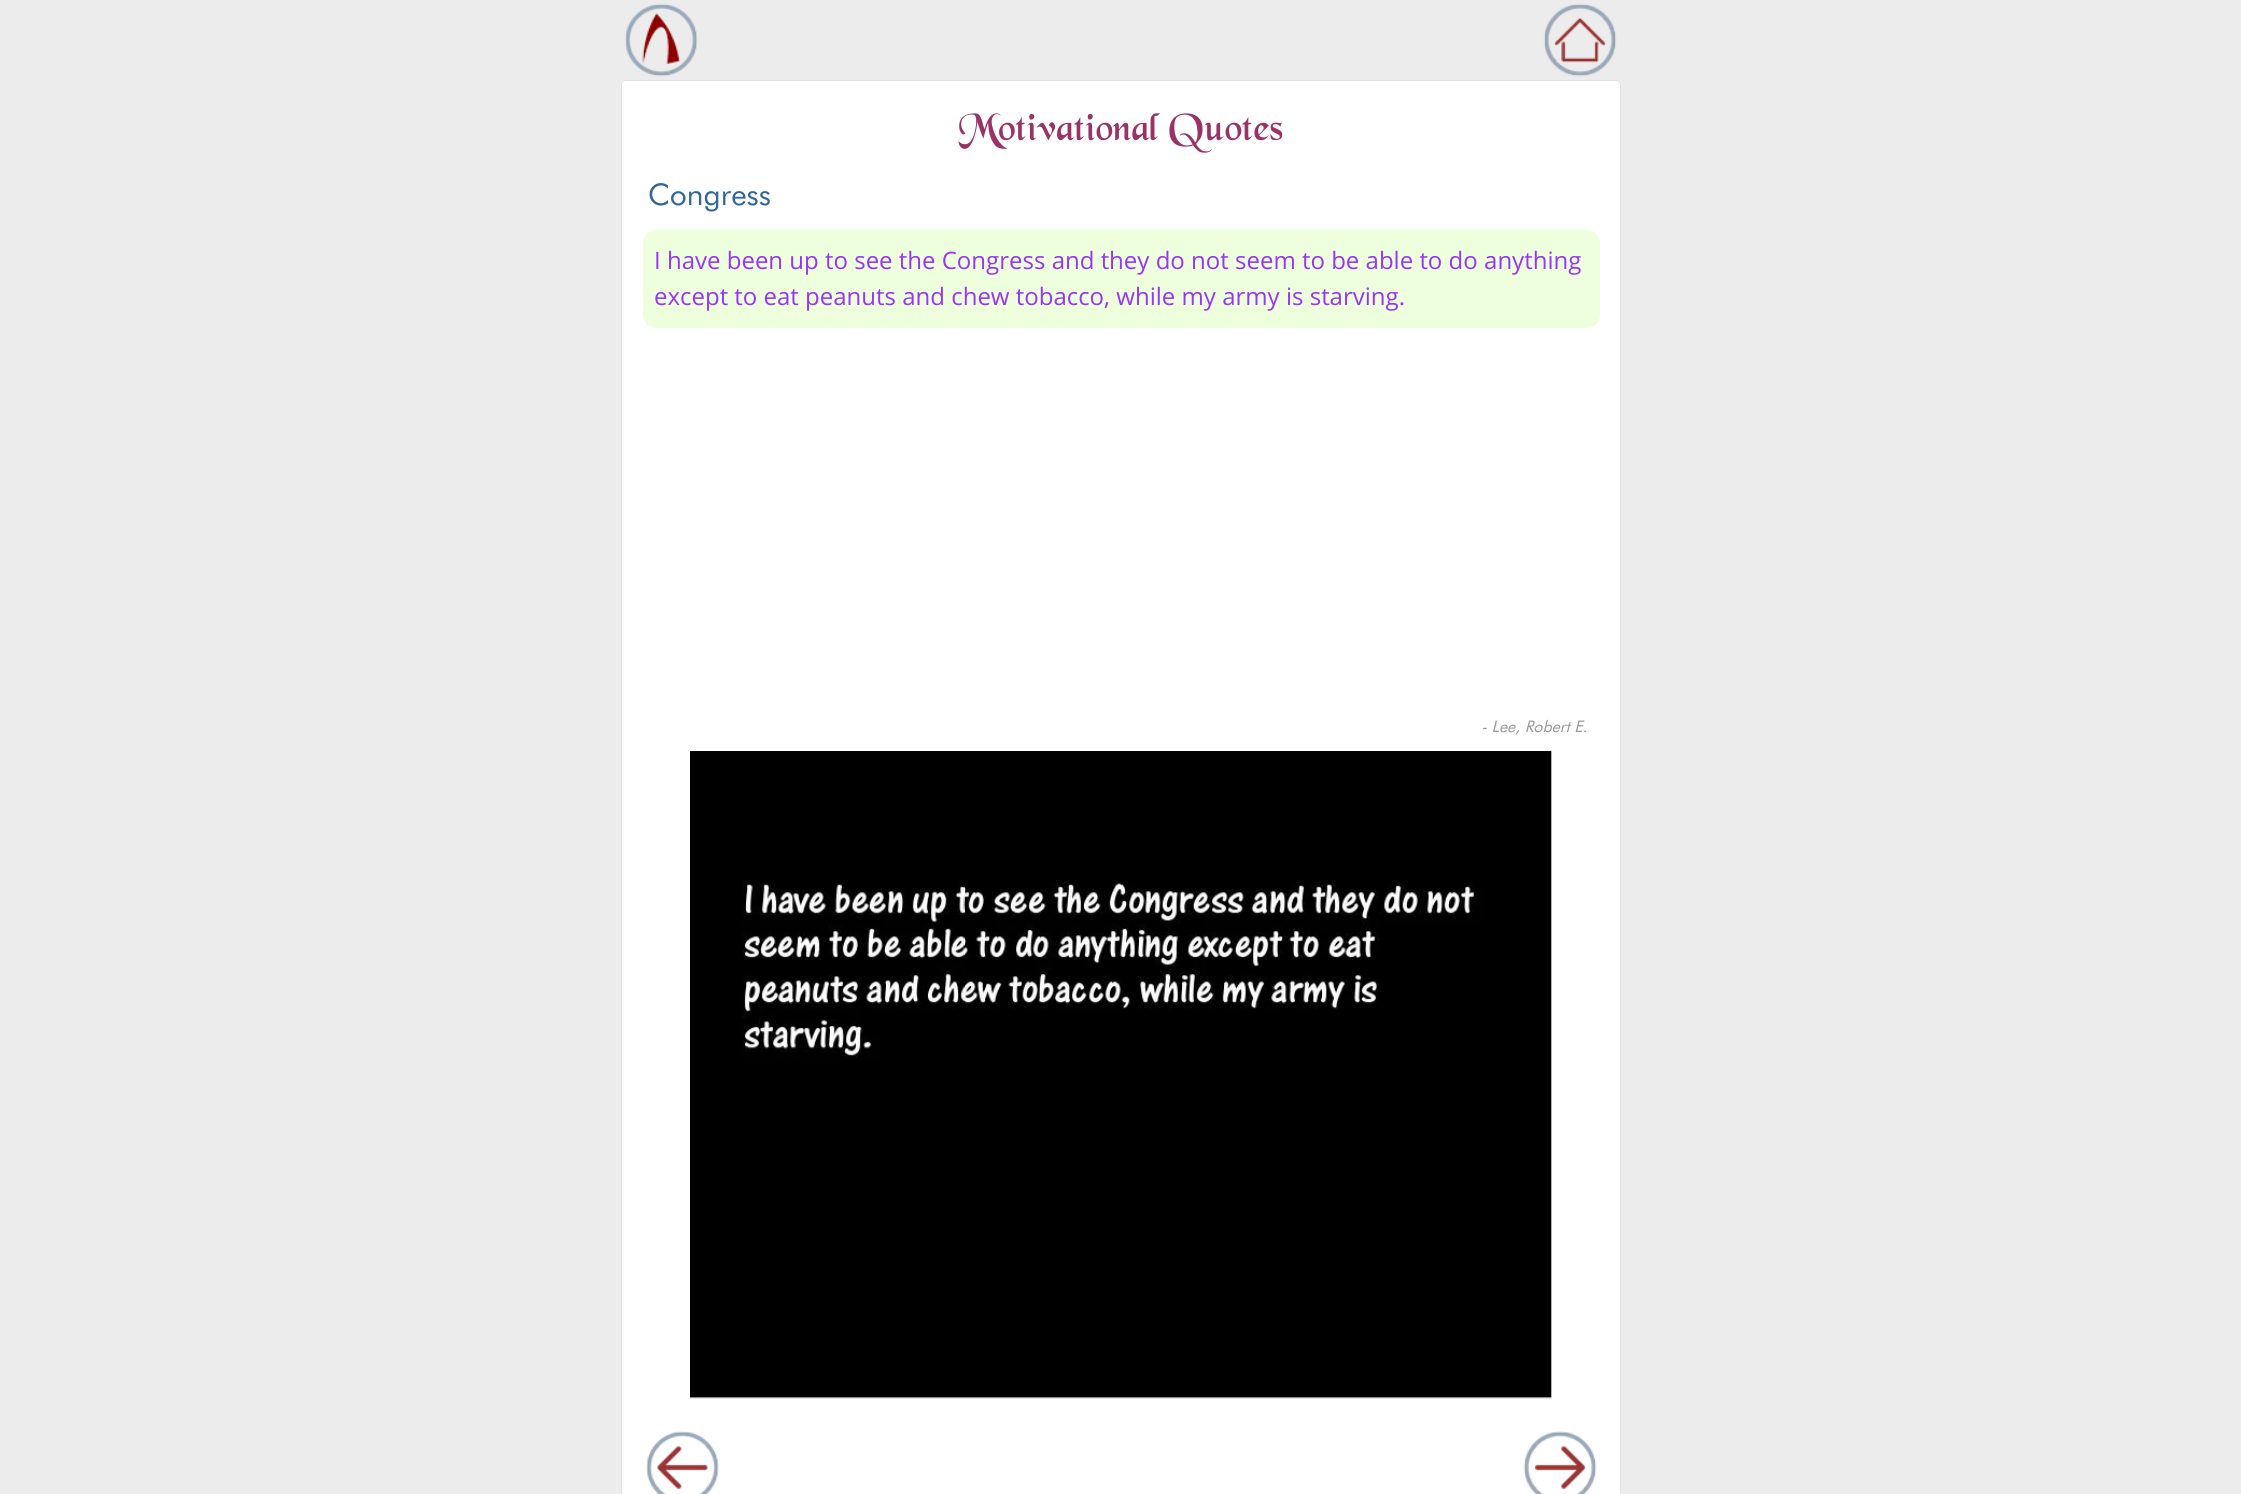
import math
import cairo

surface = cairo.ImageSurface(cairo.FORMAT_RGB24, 2241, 1494)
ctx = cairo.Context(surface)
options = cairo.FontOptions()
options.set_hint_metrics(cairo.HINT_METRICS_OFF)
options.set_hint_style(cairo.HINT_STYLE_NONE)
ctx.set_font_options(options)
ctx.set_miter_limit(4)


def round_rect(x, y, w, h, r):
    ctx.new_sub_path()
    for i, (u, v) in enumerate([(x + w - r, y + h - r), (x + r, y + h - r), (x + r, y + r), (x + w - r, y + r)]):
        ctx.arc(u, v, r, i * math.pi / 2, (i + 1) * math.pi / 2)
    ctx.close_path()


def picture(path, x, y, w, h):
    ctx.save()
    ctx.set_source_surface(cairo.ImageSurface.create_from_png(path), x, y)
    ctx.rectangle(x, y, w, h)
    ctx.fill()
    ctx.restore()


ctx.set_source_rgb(0.925, 0.925, 0.925)
ctx.paint()
picture("img1.png", 625, 3, 73, 74)
picture("img2.png", 1543, 4, 74, 73)
ctx.set_source_rgb(1, 1, 1)
ctx.new_path()
ctx.move_to(626, 80)
ctx.line_to(1616, 80)
ctx.curve_to(1619, 80, 1621, 82, 1621, 85)
ctx.line_to(1621, 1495)
ctx.line_to(621, 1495)
ctx.line_to(621, 85)
ctx.curve_to(621, 82, 623, 80, 626, 80)
ctx.close_path()
ctx.fill()
round_rect(621.5, 80.5, 999, 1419, 4.5)
ctx.set_source_rgba(0, 0, 0, 0.12)
ctx.set_line_width(1)
ctx.stroke()
ctx.select_font_face("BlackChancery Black")
ctx.set_font_size(40)
ctx.set_source_rgb(0.6, 0.2, 0.4)
ctx.move_to(959, 140)
ctx.show_text("Motivational Quotes")
ctx.select_font_face("Futura")
ctx.set_font_size(30)
ctx.set_source_rgb(0.2, 0.4, 0.6)
ctx.move_to(648, 205)
ctx.show_text("Congress")
ctx.set_source_rgb(0.933, 1, 0.867)
round_rect(643, 230, 957, 98, 13)
ctx.fill()
ctx.select_font_face("Open Sans")
ctx.set_font_size(24)
ctx.set_source_rgb(0.6, 0.2, 1)
ctx.move_to(654, 269)
ctx.show_text("I have been up to see the Congress and they do not seem to be able to do anything")
ctx.move_to(654, 305)
ctx.show_text("except to eat peanuts and chew tobacco, while my army is starving.")
ctx.select_font_face("Futura", cairo.FONT_SLANT_ITALIC)
ctx.set_font_size(16)
ctx.set_source_rgb(0.6, 0.6, 0.6)
ctx.move_to(1481, 732)
ctx.show_text("- Lee, Robert E.")
picture("img3.png", 690, 751, 862, 648)
picture("img4.png", 646, 1431, 73, 63)
picture("img5.png", 1523, 1431, 74, 63)
surface.write_to_png("page.png")
